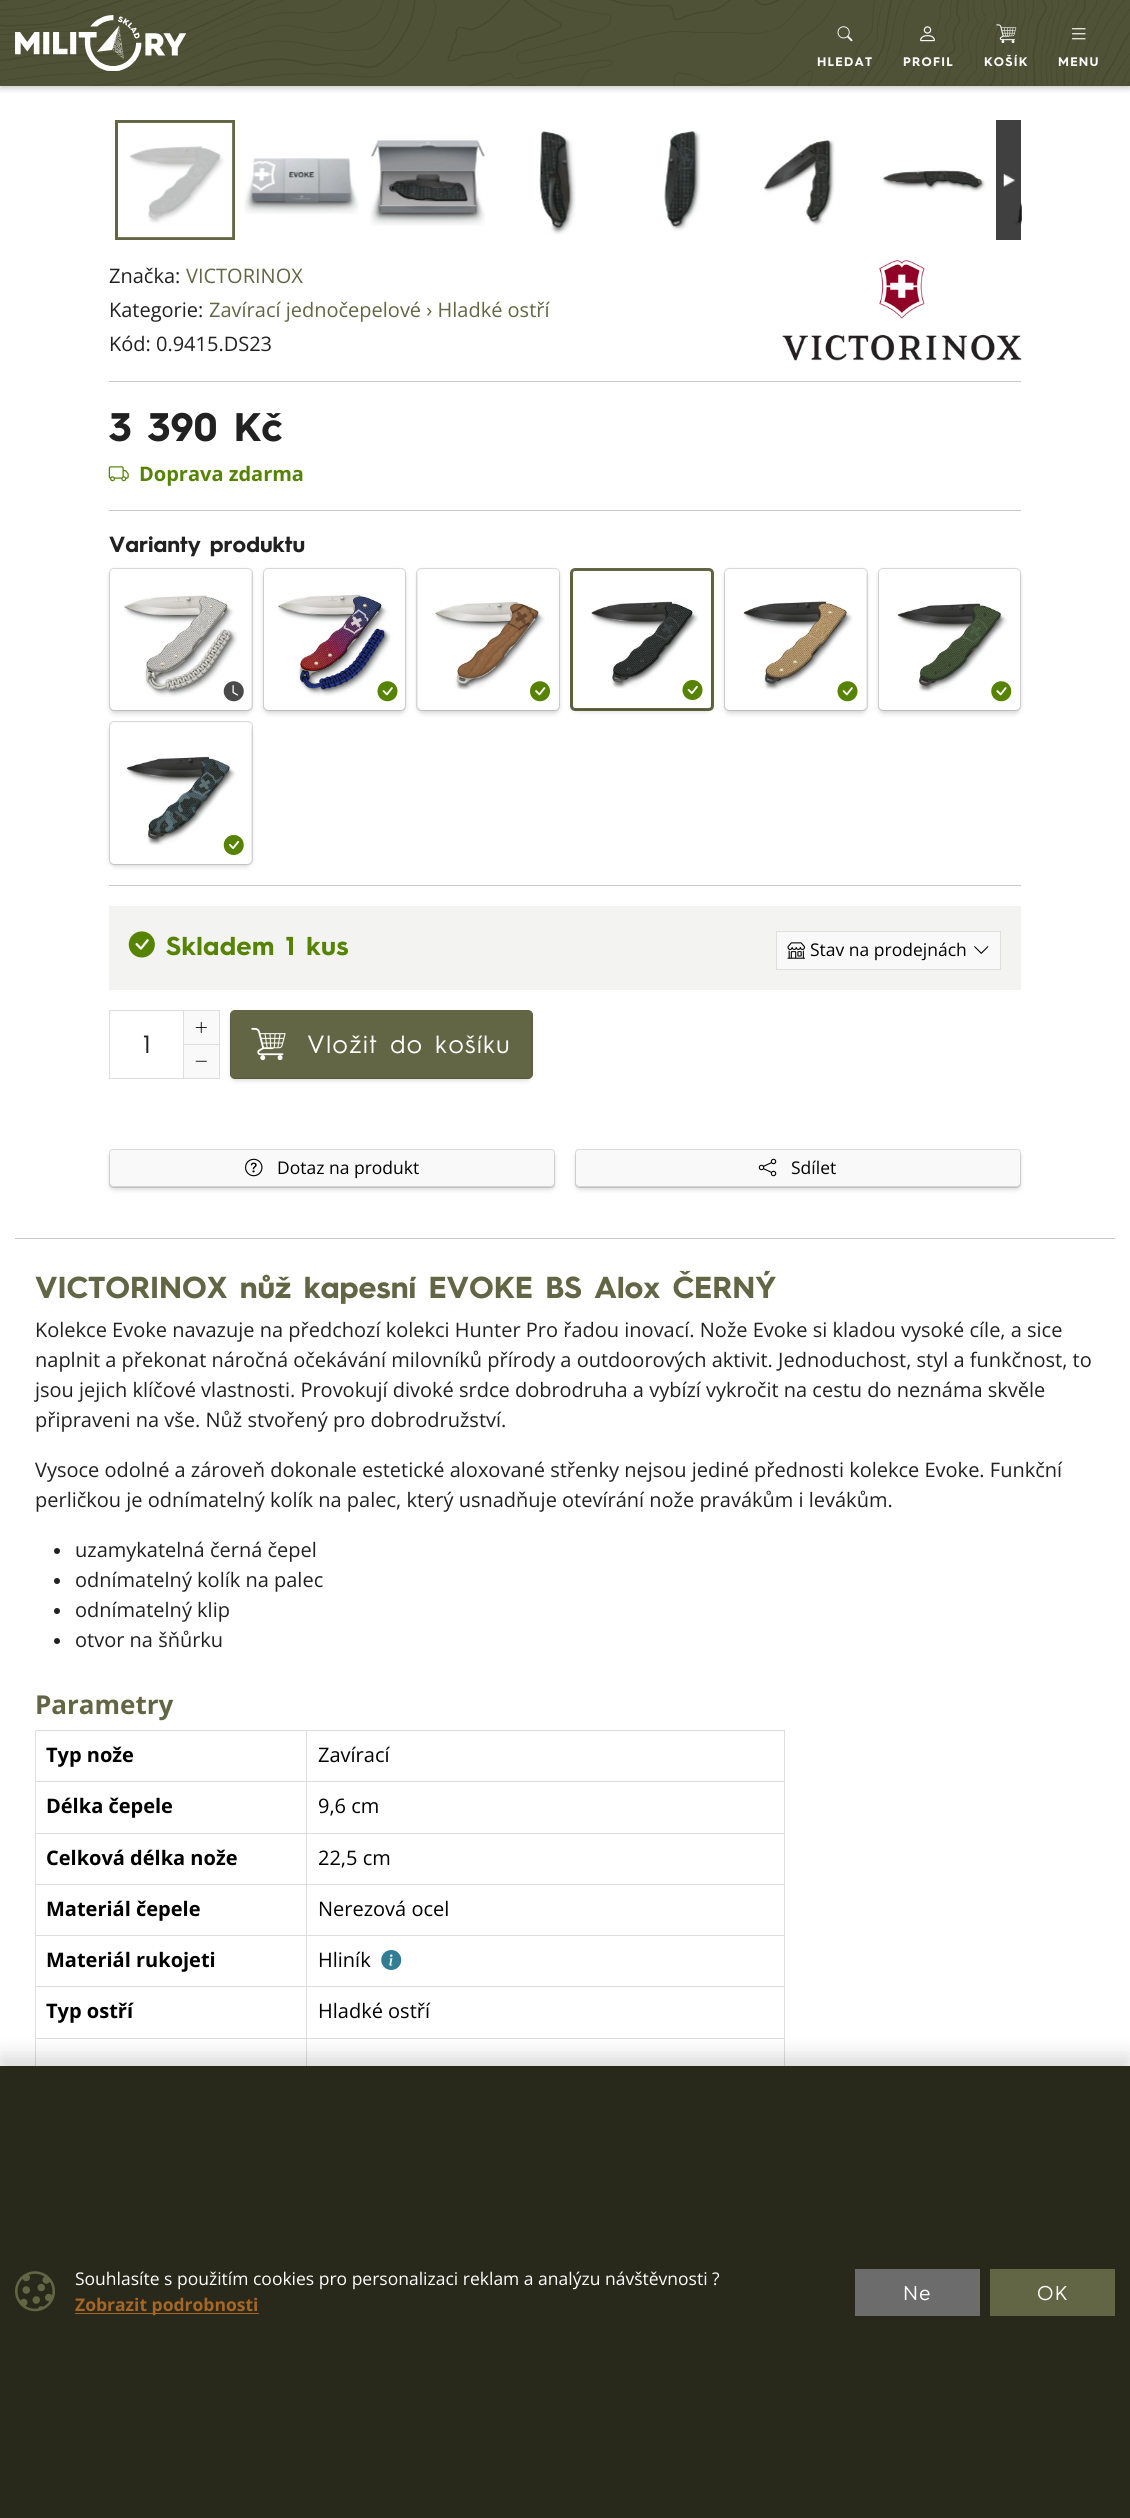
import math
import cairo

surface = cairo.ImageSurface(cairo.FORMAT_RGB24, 1130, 2518)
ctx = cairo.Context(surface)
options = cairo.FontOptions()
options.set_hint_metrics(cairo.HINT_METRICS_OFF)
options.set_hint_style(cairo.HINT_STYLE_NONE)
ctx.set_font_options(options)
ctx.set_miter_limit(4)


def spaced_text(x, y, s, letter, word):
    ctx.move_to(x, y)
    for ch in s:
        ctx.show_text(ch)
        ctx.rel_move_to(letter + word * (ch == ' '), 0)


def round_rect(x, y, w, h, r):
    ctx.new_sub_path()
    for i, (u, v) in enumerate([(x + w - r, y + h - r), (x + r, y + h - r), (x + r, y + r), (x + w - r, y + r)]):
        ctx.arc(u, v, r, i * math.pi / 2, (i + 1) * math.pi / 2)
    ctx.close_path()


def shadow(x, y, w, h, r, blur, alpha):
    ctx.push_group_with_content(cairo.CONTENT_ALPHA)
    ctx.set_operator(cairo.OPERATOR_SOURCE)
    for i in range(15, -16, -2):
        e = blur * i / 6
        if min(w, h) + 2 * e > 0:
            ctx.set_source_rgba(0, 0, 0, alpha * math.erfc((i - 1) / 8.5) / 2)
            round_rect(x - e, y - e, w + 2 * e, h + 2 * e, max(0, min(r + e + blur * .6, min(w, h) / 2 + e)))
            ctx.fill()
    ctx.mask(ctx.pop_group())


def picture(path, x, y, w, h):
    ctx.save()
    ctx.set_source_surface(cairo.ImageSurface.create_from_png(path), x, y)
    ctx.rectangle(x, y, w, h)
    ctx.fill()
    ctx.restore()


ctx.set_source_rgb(1, 1, 1)
ctx.paint()
ctx.set_source_rgb(0.251, 0.251, 0.251)
ctx.rectangle(996, 120, 25, 120)
ctx.fill()
ctx.set_source_rgb(0, 0, 0)
shadow(0, 3, 1130, 86, 0, 2.5, 0.18)
ctx.set_source_rgb(0.31, 0.322, 0.212)
ctx.rectangle(0, 0, 1130, 86)
ctx.fill()
picture("img1.png", 0, 0, 1130, 86)
picture("img2.png", 15, 15, 171, 56)
picture("img3.png", 837, 26, 16, 16)
ctx.select_font_face("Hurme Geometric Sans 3", cairo.FONT_SLANT_NORMAL, cairo.FONT_WEIGHT_BOLD)
ctx.set_font_size(12.5)
ctx.set_source_rgb(0.973, 0.973, 0.973)
spaced_text(817, 66, "HLEDAT", 1.25, 0)
picture("img4.png", 920, 26, 15, 16)
spaced_text(903, 66, "PROFIL", 1.25, 0)
picture("img5.png", 996, 24, 21, 20)
spaced_text(984, 66, "KOŠÍK", 1.25, 0)
picture("img6.png", 1071, 28, 15, 12)
spaced_text(1058, 66, "MENU", 1.25, 0)
ctx.rectangle(116.5, 121.5, 117, 117)
ctx.set_source_rgb(0.388, 0.4, 0.267)
ctx.set_line_width(3)
ctx.stroke()
picture("img7.png", 118, 122, 115, 116)
picture("img8.png", 244, 158, 115, 56)
picture("img9.png", 370, 139, 115, 87)
picture("img10.png", 539, 131, 37, 104)
picture("img11.png", 664, 130, 37, 101)
picture("img12.png", 764, 140, 71, 86)
picture("img13.png", 882, 170, 104, 22)
picture("img14.png", 1012, 202, 10, 23)
picture("img15.png", 1003, 173, 13, 14)
ctx.select_font_face("Open Sans")
ctx.set_font_size(20)
ctx.set_source_rgb(0.129, 0.129, 0.129)
ctx.move_to(109, 283)
ctx.show_text("Značka:")
ctx.set_source_rgb(0.388, 0.4, 0.267)
ctx.move_to(186, 283)
ctx.show_text("VICTORINOX")
ctx.set_source_rgb(0.129, 0.129, 0.129)
ctx.move_to(109, 317)
ctx.show_text("Kategorie:")
ctx.set_source_rgb(0.388, 0.4, 0.267)
ctx.move_to(209, 317)
ctx.show_text("Zavírací jednočepelové › Hladké ostří")
ctx.set_source_rgb(0.129, 0.129, 0.129)
ctx.move_to(109, 351)
ctx.show_text("Kód: 0.9415.DS23")
picture("img16.png", 782, 260, 240, 101)
ctx.set_source_rgb(0.784, 0.784, 0.784)
ctx.rectangle(109, 381, 912, 1)
ctx.fill()
ctx.select_font_face("Hurme Geometric Sans 3", cairo.FONT_SLANT_NORMAL, cairo.FONT_WEIGHT_BOLD)
ctx.set_font_size(40)
ctx.set_source_rgb(0.129, 0.129, 0.129)
ctx.move_to(109, 441)
ctx.show_text("3 390 Kč")
picture("img17.png", 108, 466, 21, 16)
ctx.select_font_face("Open Sans", cairo.FONT_SLANT_NORMAL, cairo.FONT_WEIGHT_BOLD)
ctx.set_font_size(20)
ctx.set_source_rgb(0.337, 0.514, 0.008)
ctx.move_to(139, 481)
ctx.show_text("Doprava zdarma")
ctx.set_source_rgb(0.784, 0.784, 0.784)
ctx.rectangle(109, 510, 912, 1)
ctx.fill()
ctx.select_font_face("Hurme Geometric Sans 3", cairo.FONT_SLANT_NORMAL, cairo.FONT_WEIGHT_BOLD)
ctx.set_font_size(22)
ctx.set_source_rgb(0.129, 0.129, 0.129)
ctx.move_to(109, 552)
ctx.show_text("Varianty produktu")
round_rect(109.5, 568.5, 143, 142, 4.5)
ctx.set_source_rgb(0.871, 0.871, 0.871)
ctx.set_line_width(1)
ctx.stroke()
ctx.save()
ctx.set_fill_rule(cairo.FILL_RULE_EVEN_ODD)
ctx.new_path()
ctx.move_to(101, 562)
ctx.line_to(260, 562)
ctx.line_to(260, 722)
ctx.line_to(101, 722)
ctx.close_path()
ctx.move_to(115, 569)
ctx.line_to(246, 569)
ctx.curve_to(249, 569, 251, 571, 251, 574)
ctx.line_to(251, 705)
ctx.curve_to(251, 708, 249, 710, 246, 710)
ctx.line_to(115, 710)
ctx.curve_to(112, 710, 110, 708, 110, 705)
ctx.line_to(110, 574)
ctx.curve_to(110, 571, 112, 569, 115, 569)
ctx.close_path()
ctx.clip()
ctx.set_source_rgb(0, 0, 0)
shadow(110, 571, 141, 142, 5, 2.5, 0.18)
ctx.restore()
picture("img18.png", 124, 595, 114, 102)
picture("img19.png", 223, 681, 21, 21)
round_rect(263.5, 568.5, 142, 142, 4.5)
ctx.stroke()
ctx.save()
ctx.set_fill_rule(cairo.FILL_RULE_EVEN_ODD)
ctx.new_path()
ctx.move_to(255, 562)
ctx.line_to(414, 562)
ctx.line_to(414, 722)
ctx.line_to(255, 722)
ctx.close_path()
ctx.move_to(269, 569)
ctx.line_to(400, 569)
ctx.curve_to(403, 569, 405, 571, 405, 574)
ctx.line_to(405, 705)
ctx.curve_to(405, 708, 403, 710, 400, 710)
ctx.line_to(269, 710)
ctx.curve_to(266, 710, 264, 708, 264, 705)
ctx.line_to(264, 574)
ctx.curve_to(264, 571, 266, 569, 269, 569)
ctx.close_path()
ctx.clip()
ctx.set_source_rgb(0, 0, 0)
shadow(264, 571, 141, 142, 5, 2.5, 0.18)
ctx.restore()
picture("img20.png", 278, 594, 113, 102)
picture("img21.png", 377, 681, 21, 21)
round_rect(416.5, 568.5, 143, 142, 4.5)
ctx.stroke()
ctx.save()
ctx.set_fill_rule(cairo.FILL_RULE_EVEN_ODD)
ctx.new_path()
ctx.move_to(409, 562)
ctx.line_to(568, 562)
ctx.line_to(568, 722)
ctx.line_to(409, 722)
ctx.close_path()
ctx.move_to(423, 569)
ctx.line_to(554, 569)
ctx.curve_to(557, 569, 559, 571, 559, 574)
ctx.line_to(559, 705)
ctx.curve_to(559, 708, 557, 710, 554, 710)
ctx.line_to(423, 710)
ctx.curve_to(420, 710, 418, 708, 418, 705)
ctx.line_to(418, 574)
ctx.curve_to(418, 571, 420, 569, 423, 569)
ctx.close_path()
ctx.clip()
ctx.set_source_rgb(0, 0, 0)
shadow(418, 571, 141, 142, 5, 2.5, 0.18)
ctx.restore()
picture("img22.png", 434, 600, 111, 90)
picture("img23.png", 530, 681, 20, 21)
round_rect(571.5, 569.5, 141, 140, 3.5)
ctx.set_source_rgb(0.388, 0.4, 0.267)
ctx.set_line_width(3)
ctx.stroke()
ctx.save()
ctx.set_fill_rule(cairo.FILL_RULE_EVEN_ODD)
ctx.new_path()
ctx.move_to(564, 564)
ctx.line_to(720, 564)
ctx.line_to(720, 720)
ctx.line_to(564, 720)
ctx.close_path()
ctx.move_to(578, 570)
ctx.line_to(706, 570)
ctx.curve_to(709, 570, 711, 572, 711, 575)
ctx.line_to(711, 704)
ctx.curve_to(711, 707, 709, 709, 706, 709)
ctx.line_to(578, 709)
ctx.curve_to(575, 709, 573, 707, 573, 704)
ctx.line_to(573, 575)
ctx.curve_to(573, 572, 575, 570, 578, 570)
ctx.close_path()
ctx.clip()
ctx.set_source_rgb(0, 0, 0)
shadow(573, 573, 138, 138, 5, 2.5, 0.18)
ctx.restore()
picture("img24.png", 591, 601, 108, 88)
picture("img25.png", 682, 680, 21, 20)
round_rect(724.5, 568.5, 143, 142, 4.5)
ctx.set_source_rgb(0.871, 0.871, 0.871)
ctx.set_line_width(1)
ctx.stroke()
ctx.save()
ctx.set_fill_rule(cairo.FILL_RULE_EVEN_ODD)
ctx.new_path()
ctx.move_to(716, 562)
ctx.line_to(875, 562)
ctx.line_to(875, 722)
ctx.line_to(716, 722)
ctx.close_path()
ctx.move_to(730, 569)
ctx.line_to(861, 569)
ctx.curve_to(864, 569, 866, 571, 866, 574)
ctx.line_to(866, 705)
ctx.curve_to(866, 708, 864, 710, 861, 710)
ctx.line_to(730, 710)
ctx.curve_to(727, 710, 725, 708, 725, 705)
ctx.line_to(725, 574)
ctx.curve_to(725, 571, 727, 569, 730, 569)
ctx.close_path()
ctx.clip()
ctx.set_source_rgb(0, 0, 0)
shadow(725, 571, 141, 142, 5, 2.5, 0.18)
ctx.restore()
picture("img26.png", 743, 600, 110, 90)
picture("img21.png", 837, 681, 21, 21)
round_rect(878.5, 568.5, 142, 142, 4.5)
ctx.stroke()
ctx.save()
ctx.set_fill_rule(cairo.FILL_RULE_EVEN_ODD)
ctx.new_path()
ctx.move_to(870, 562)
ctx.line_to(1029, 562)
ctx.line_to(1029, 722)
ctx.line_to(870, 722)
ctx.close_path()
ctx.move_to(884, 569)
ctx.line_to(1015, 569)
ctx.curve_to(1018, 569, 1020, 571, 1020, 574)
ctx.line_to(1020, 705)
ctx.curve_to(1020, 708, 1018, 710, 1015, 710)
ctx.line_to(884, 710)
ctx.curve_to(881, 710, 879, 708, 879, 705)
ctx.line_to(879, 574)
ctx.curve_to(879, 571, 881, 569, 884, 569)
ctx.close_path()
ctx.clip()
ctx.set_source_rgb(0, 0, 0)
shadow(879, 571, 141, 142, 5, 2.5, 0.18)
ctx.restore()
picture("img27.png", 897, 603, 110, 89)
picture("img28.png", 991, 681, 21, 21)
round_rect(109.5, 721.5, 143, 143, 4.5)
ctx.stroke()
ctx.save()
ctx.set_fill_rule(cairo.FILL_RULE_EVEN_ODD)
ctx.new_path()
ctx.move_to(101, 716)
ctx.line_to(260, 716)
ctx.line_to(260, 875)
ctx.line_to(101, 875)
ctx.close_path()
ctx.move_to(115, 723)
ctx.line_to(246, 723)
ctx.curve_to(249, 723, 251, 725, 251, 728)
ctx.line_to(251, 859)
ctx.curve_to(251, 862, 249, 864, 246, 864)
ctx.line_to(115, 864)
ctx.curve_to(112, 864, 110, 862, 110, 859)
ctx.line_to(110, 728)
ctx.curve_to(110, 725, 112, 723, 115, 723)
ctx.close_path()
ctx.clip()
ctx.set_source_rgb(0, 0, 0)
shadow(110, 725, 141, 141, 5, 2.5, 0.18)
ctx.restore()
picture("img29.png", 126, 756, 110, 90)
picture("img30.png", 223, 835, 21, 20)
ctx.set_source_rgb(0.784, 0.784, 0.784)
ctx.rectangle(109, 885, 912, 1)
ctx.fill()
ctx.set_source_rgb(0.953, 0.957, 0.945)
ctx.rectangle(109, 906, 912, 84)
ctx.fill()
picture("img31.png", 128, 931, 27, 27)
ctx.set_font_size(26)
ctx.set_source_rgb(0.337, 0.514, 0.008)
spaced_text(166, 955, "Skladem 1 kus", 0.4, 0)
ctx.set_source_rgb(0.973, 0.973, 0.973)
ctx.rectangle(776.5, 931.5, 224, 38)
ctx.fill_preserve()
ctx.set_source_rgb(0.871, 0.871, 0.871)
ctx.stroke()
picture("img32.png", 787, 942, 18, 17)
ctx.select_font_face("Open Sans")
ctx.set_font_size(17.5)
ctx.set_source_rgb(0, 0, 0)
ctx.move_to(810, 956)
ctx.show_text("Stav na prodejnách")
picture("img33.png", 974, 946, 15, 8)
ctx.rectangle(109.5, 1010.5, 74, 68)
ctx.set_source_rgb(0.871, 0.871, 0.871)
ctx.stroke()
ctx.select_font_face("Hurme Geometric Sans 3")
ctx.set_font_size(25)
ctx.set_source_rgb(0.129, 0.129, 0.129)
ctx.move_to(143, 1053)
ctx.show_text("1")
ctx.set_source_rgb(0.973, 0.973, 0.973)
ctx.rectangle(183.5, 1010.5, 36, 34)
ctx.fill_preserve()
ctx.set_source_rgb(0.871, 0.871, 0.871)
ctx.stroke()
picture("img34.png", 195, 1021, 12, 13)
ctx.set_source_rgb(0.973, 0.973, 0.973)
ctx.rectangle(183.5, 1044.5, 36, 34)
ctx.fill_preserve()
ctx.set_source_rgb(0.871, 0.871, 0.871)
ctx.stroke()
picture("img35.png", 195, 1060, 12, 2)
ctx.set_source_rgb(0.388, 0.4, 0.267)
round_rect(230.5, 1010.5, 302, 68, 4.5)
ctx.fill_preserve()
ctx.stroke()
ctx.save()
ctx.set_fill_rule(cairo.FILL_RULE_EVEN_ODD)
ctx.new_path()
ctx.move_to(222, 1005)
ctx.line_to(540, 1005)
ctx.line_to(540, 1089)
ctx.line_to(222, 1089)
ctx.close_path()
ctx.move_to(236, 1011)
ctx.line_to(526, 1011)
ctx.curve_to(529, 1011, 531, 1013, 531, 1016)
ctx.line_to(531, 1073)
ctx.curve_to(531, 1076, 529, 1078, 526, 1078)
ctx.line_to(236, 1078)
ctx.curve_to(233, 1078, 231, 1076, 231, 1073)
ctx.line_to(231, 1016)
ctx.curve_to(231, 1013, 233, 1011, 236, 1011)
ctx.close_path()
ctx.clip()
ctx.set_source_rgb(0, 0, 0)
shadow(231, 1014, 300, 66, 5, 2.5, 0.18)
ctx.restore()
picture("img36.png", 251, 1027, 35, 34)
ctx.set_source_rgb(1, 1, 1)
spaced_text(307, 1053, "Vložit do košíku", 1.5, 0)
ctx.set_source_rgb(0.973, 0.973, 0.973)
round_rect(109.5, 1149.5, 445, 38, 3.5)
ctx.fill_preserve()
ctx.set_source_rgb(0.871, 0.871, 0.871)
ctx.stroke()
picture("img37.png", 245, 1158, 18, 19)
ctx.save()
ctx.set_fill_rule(cairo.FILL_RULE_EVEN_ODD)
ctx.new_path()
ctx.move_to(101, 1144)
ctx.line_to(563, 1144)
ctx.line_to(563, 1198)
ctx.line_to(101, 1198)
ctx.close_path()
ctx.move_to(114, 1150)
ctx.line_to(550, 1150)
ctx.curve_to(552, 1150, 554, 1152, 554, 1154)
ctx.line_to(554, 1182)
ctx.curve_to(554, 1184, 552, 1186, 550, 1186)
ctx.line_to(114, 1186)
ctx.curve_to(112, 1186, 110, 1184, 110, 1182)
ctx.line_to(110, 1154)
ctx.curve_to(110, 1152, 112, 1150, 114, 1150)
ctx.close_path()
ctx.clip()
ctx.set_source_rgb(0, 0, 0)
shadow(110, 1153, 444, 36, 4, 2.5, 0.18)
ctx.restore()
ctx.select_font_face("Open Sans")
ctx.set_font_size(17.5)
ctx.set_source_rgb(0, 0, 0)
ctx.move_to(277, 1174)
ctx.show_text("Dotaz na produkt")
ctx.set_source_rgb(0.973, 0.973, 0.973)
round_rect(575.5, 1149.5, 445, 38, 3.5)
ctx.fill_preserve()
ctx.set_source_rgb(0.871, 0.871, 0.871)
ctx.stroke()
picture("img38.png", 758, 1158, 19, 19)
ctx.save()
ctx.set_fill_rule(cairo.FILL_RULE_EVEN_ODD)
ctx.new_path()
ctx.move_to(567, 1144)
ctx.line_to(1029, 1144)
ctx.line_to(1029, 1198)
ctx.line_to(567, 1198)
ctx.close_path()
ctx.move_to(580, 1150)
ctx.line_to(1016, 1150)
ctx.curve_to(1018, 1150, 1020, 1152, 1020, 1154)
ctx.line_to(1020, 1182)
ctx.curve_to(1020, 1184, 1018, 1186, 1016, 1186)
ctx.line_to(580, 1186)
ctx.curve_to(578, 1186, 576, 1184, 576, 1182)
ctx.line_to(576, 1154)
ctx.curve_to(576, 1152, 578, 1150, 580, 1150)
ctx.close_path()
ctx.clip()
ctx.set_source_rgb(0, 0, 0)
shadow(576, 1153, 444, 36, 4, 2.5, 0.18)
ctx.restore()
ctx.set_source_rgb(0, 0, 0)
ctx.move_to(791, 1174)
ctx.show_text("Sdílet")
ctx.set_source_rgb(0.784, 0.784, 0.784)
ctx.rectangle(15, 1238, 1100, 1)
ctx.fill()
ctx.select_font_face("Hurme Geometric Sans 3", cairo.FONT_SLANT_NORMAL, cairo.FONT_WEIGHT_BOLD)
ctx.set_font_size(30.45)
ctx.set_source_rgb(0.388, 0.4, 0.267)
ctx.move_to(35, 1298)
ctx.show_text("VICTORINOX nůž kapesní EVOKE BS Alox ČERNÝ")
ctx.select_font_face("Open Sans")
ctx.set_font_size(20)
ctx.set_source_rgb(0.129, 0.129, 0.129)
ctx.move_to(35, 1337)
ctx.show_text("Kolekce Evoke navazuje na předchozí kolekci Hunter Pro řadou inovací. Nože Evoke si kladou vysoké cíle, a sice")
ctx.move_to(35, 1367)
ctx.show_text("naplnit a překonat náročná očekávání milovníků přírody a outdoorových aktivit. Jednoduchost, styl a funkčnost, to")
ctx.move_to(35, 1397)
ctx.show_text("jsou jejich klíčové vlastnosti. Provokují divoké srdce dobrodruha a vybízí vykročit na cestu do neznáma skvěle")
ctx.move_to(35, 1427)
ctx.show_text("připraveni na vše. Nůž stvořený pro dobrodružství.")
ctx.move_to(35, 1477)
ctx.show_text("Vysoce odolné a zároveň dokonale estetické aloxované střenky nejsou jediné přednosti kolekce Evoke. Funkční")
ctx.move_to(35, 1507)
ctx.show_text("perličkou je odnímatelný kolík na palec, který usnadňuje otevírání nože pravákům i levákům.")
ctx.new_path()
ctx.arc(57, 1551, 3, 0, 2 * math.pi)
ctx.fill()
ctx.move_to(75, 1557)
ctx.show_text("uzamykatelná černá čepel")
ctx.new_path()
ctx.arc(57, 1581, 3, 0, 2 * math.pi)
ctx.fill()
ctx.move_to(75, 1587)
ctx.show_text("odnímatelný kolík na palec")
ctx.new_path()
ctx.arc(57, 1611, 3, 0, 2 * math.pi)
ctx.fill()
ctx.move_to(75, 1617)
ctx.show_text("odnímatelný klip")
ctx.new_path()
ctx.arc(57, 1641, 3, 0, 2 * math.pi)
ctx.fill()
ctx.move_to(75, 1647)
ctx.show_text("otvor na šňůrku")
ctx.select_font_face("Open Sans", cairo.FONT_SLANT_NORMAL, cairo.FONT_WEIGHT_BOLD)
ctx.set_font_size(26)
ctx.set_source_rgb(0.388, 0.4, 0.267)
ctx.move_to(35, 1714)
ctx.show_text("Parametry")
ctx.set_source_rgb(0.871, 0.871, 0.871)
ctx.rectangle(35, 2038, 750, 1)
ctx.fill()
ctx.rectangle(35, 1730, 750, 1)
ctx.fill()
ctx.rectangle(35, 1781, 750, 1)
ctx.fill()
ctx.rectangle(35, 1833, 750, 1)
ctx.fill()
ctx.rectangle(35, 1884, 750, 1)
ctx.fill()
ctx.rectangle(35, 1935, 750, 1)
ctx.fill()
ctx.rectangle(35, 1986, 750, 1)
ctx.fill()
ctx.rectangle(35, 1730, 1, 336)
ctx.fill()
ctx.rectangle(784, 1730, 1, 336)
ctx.fill()
ctx.rectangle(306, 1730, 1, 336)
ctx.fill()
ctx.set_font_size(20)
ctx.set_source_rgb(0, 0, 0)
ctx.move_to(46, 1762)
ctx.show_text("Typ nože")
ctx.select_font_face("Open Sans")
ctx.move_to(318, 1762)
ctx.show_text("Zavírací")
ctx.select_font_face("Open Sans", cairo.FONT_SLANT_NORMAL, cairo.FONT_WEIGHT_BOLD)
ctx.move_to(46, 1813)
ctx.show_text("Délka čepele")
ctx.select_font_face("Open Sans")
ctx.move_to(318, 1813)
ctx.show_text("9,6 cm")
ctx.select_font_face("Open Sans", cairo.FONT_SLANT_NORMAL, cairo.FONT_WEIGHT_BOLD)
ctx.move_to(46, 1865)
ctx.show_text("Celková délka nože")
ctx.select_font_face("Open Sans")
ctx.move_to(318, 1865)
ctx.show_text("22,5 cm")
ctx.select_font_face("Open Sans", cairo.FONT_SLANT_NORMAL, cairo.FONT_WEIGHT_BOLD)
ctx.move_to(46, 1916)
ctx.show_text("Materiál čepele")
ctx.select_font_face("Open Sans")
ctx.move_to(318, 1916)
ctx.show_text("Nerezová ocel")
ctx.select_font_face("Open Sans", cairo.FONT_SLANT_NORMAL, cairo.FONT_WEIGHT_BOLD)
ctx.move_to(46, 1967)
ctx.show_text("Materiál rukojeti")
ctx.select_font_face("Open Sans")
ctx.move_to(318, 1967)
ctx.show_text("Hliník")
picture("img39.png", 381, 1950, 21, 20)
ctx.select_font_face("Open Sans", cairo.FONT_SLANT_NORMAL, cairo.FONT_WEIGHT_BOLD)
ctx.move_to(46, 2018)
ctx.show_text("Typ ostří")
ctx.select_font_face("Open Sans")
ctx.move_to(318, 2018)
ctx.show_text("Hladké ostří")
ctx.set_source_rgb(0, 0, 0)
shadow(0, 2056, 1130, 453, 0, 10, 0.15)
ctx.set_source_rgb(0.157, 0.161, 0.106)
ctx.rectangle(0, 2066, 1130, 452)
ctx.fill()
picture("img40.png", 15, 2271, 40, 41)
ctx.set_font_size(17.5)
ctx.set_source_rgb(1, 1, 1)
ctx.move_to(75, 2285)
ctx.show_text("Souhlasíte s použitím cookies pro personalizaci reklam a analýzu návštěvnosti ?")
ctx.set_source_rgb(0.651, 0.4, 0.149)
ctx.rectangle(75, 2313, 184, 1)
ctx.fill()
ctx.select_font_face("Open Sans", cairo.FONT_SLANT_NORMAL, cairo.FONT_WEIGHT_BOLD)
ctx.move_to(75, 2311)
ctx.show_text("Zobrazit podrobnosti")
ctx.set_source_rgb(0.424, 0.424, 0.424)
ctx.rectangle(855, 2269, 125, 47)
ctx.fill()
ctx.select_font_face("Hurme Geometric Sans 3")
ctx.set_font_size(20)
ctx.set_source_rgb(1, 1, 1)
spaced_text(903, 2300, "Ne", 1.25, 0)
ctx.set_source_rgb(0.388, 0.4, 0.267)
ctx.rectangle(990, 2269, 125, 47)
ctx.fill()
ctx.set_source_rgb(1, 1, 1)
spaced_text(1037, 2300, "OK", 1.25, 0)
surface.write_to_png("page.png")
